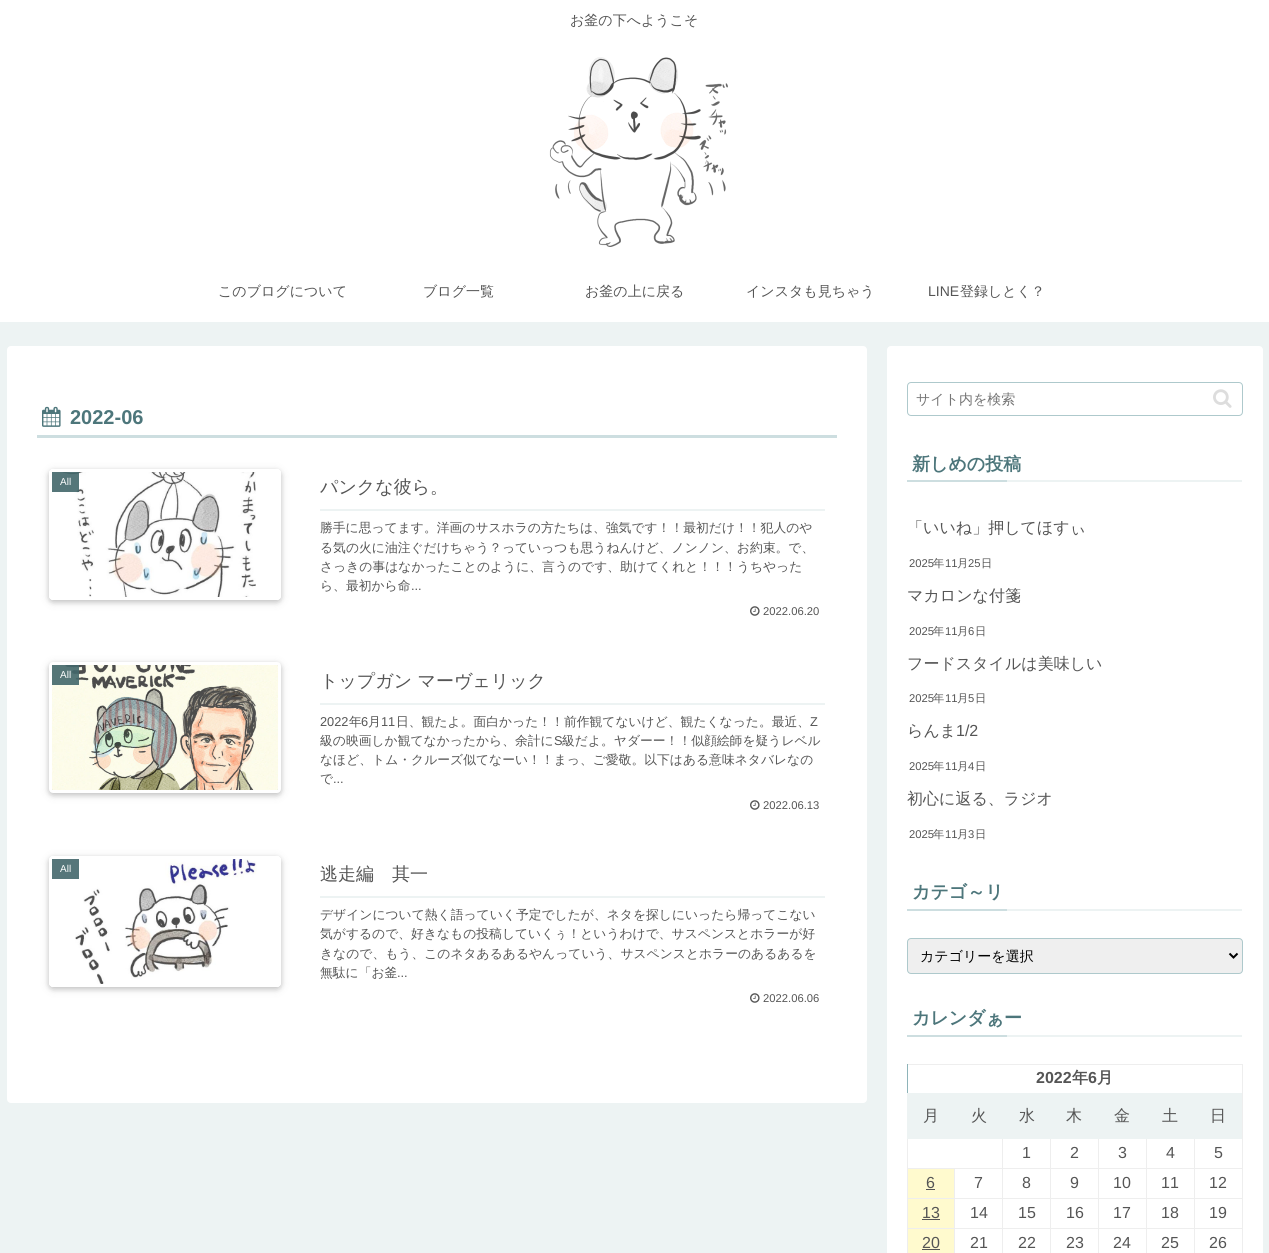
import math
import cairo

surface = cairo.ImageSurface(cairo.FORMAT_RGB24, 1269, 1253)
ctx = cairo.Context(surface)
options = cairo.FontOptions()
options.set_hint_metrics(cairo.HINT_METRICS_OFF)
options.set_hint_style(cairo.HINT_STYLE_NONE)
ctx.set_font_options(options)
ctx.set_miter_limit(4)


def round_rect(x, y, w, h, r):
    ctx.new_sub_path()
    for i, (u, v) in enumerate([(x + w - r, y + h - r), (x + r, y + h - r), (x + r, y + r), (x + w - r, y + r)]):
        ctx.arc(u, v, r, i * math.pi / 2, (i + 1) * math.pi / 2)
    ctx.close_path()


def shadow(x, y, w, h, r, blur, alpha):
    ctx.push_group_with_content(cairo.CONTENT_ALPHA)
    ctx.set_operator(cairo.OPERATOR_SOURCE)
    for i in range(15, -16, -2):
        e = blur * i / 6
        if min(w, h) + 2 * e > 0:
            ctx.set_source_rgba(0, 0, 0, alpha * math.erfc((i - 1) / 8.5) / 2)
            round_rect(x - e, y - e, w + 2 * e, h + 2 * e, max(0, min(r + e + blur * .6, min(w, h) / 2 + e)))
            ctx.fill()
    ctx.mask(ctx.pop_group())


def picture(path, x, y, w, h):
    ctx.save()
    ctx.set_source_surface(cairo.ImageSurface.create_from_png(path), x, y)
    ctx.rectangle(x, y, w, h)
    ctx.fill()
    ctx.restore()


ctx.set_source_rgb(0.929, 0.953, 0.953)
ctx.paint()
ctx.set_source_rgb(1, 1, 1)
ctx.rectangle(0, 0, 1269, 322)
ctx.fill()
ctx.select_font_face("WenQuanYi Zen Hei Medium")
ctx.set_font_size(14)
ctx.set_source_rgb(0.333, 0.333, 0.333)
ctx.move_to(570, 25)
ctx.show_text("お釜の下へようこそ")
picture("img1.png", 549, 57, 179, 190)
ctx.move_to(218, 296)
ctx.show_text("このブログについて")
ctx.move_to(423, 296)
ctx.show_text("ブログ一覧")
ctx.move_to(585, 296)
ctx.show_text("お釜の上に戻る")
ctx.move_to(746, 296)
ctx.show_text("インスタも見ちゃう")
ctx.select_font_face("Liberation Sans")
ctx.move_to(928, 296)
ctx.show_text("LINE")
ctx.select_font_face("WenQuanYi Zen Hei Medium")
ctx.move_to(960, 296)
ctx.show_text("登録しとく？")
ctx.set_source_rgb(1, 1, 1)
round_rect(7, 346, 860, 757, 4)
ctx.fill()
ctx.set_source_rgb(0.804, 0.871, 0.878)
ctx.rectangle(37, 435, 800, 3)
ctx.fill()
picture("img2.png", 42, 406, 19, 21)
ctx.select_font_face("Liberation Sans", cairo.FONT_SLANT_NORMAL, cairo.FONT_WEIGHT_BOLD)
ctx.set_font_size(20)
ctx.set_source_rgb(0.302, 0.463, 0.482)
ctx.move_to(70, 424)
ctx.show_text("2022-06")
ctx.save()
ctx.set_fill_rule(cairo.FILL_RULE_EVEN_ODD)
ctx.new_path()
ctx.move_to(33, 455)
ctx.line_to(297, 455)
ctx.line_to(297, 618)
ctx.line_to(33, 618)
ctx.close_path()
ctx.move_to(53, 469)
ctx.line_to(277, 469)
ctx.curve_to(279, 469, 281, 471, 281, 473)
ctx.line_to(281, 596)
ctx.curve_to(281, 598, 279, 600, 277, 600)
ctx.line_to(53, 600)
ctx.curve_to(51, 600, 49, 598, 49, 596)
ctx.line_to(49, 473)
ctx.curve_to(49, 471, 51, 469, 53, 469)
ctx.close_path()
ctx.clip()
ctx.set_source_rgb(0, 0, 0)
shadow(49, 471, 232, 131, 4, 5, 0.12)
ctx.restore()
ctx.save()
ctx.set_fill_rule(cairo.FILL_RULE_EVEN_ODD)
ctx.new_path()
ctx.move_to(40, 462)
ctx.line_to(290, 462)
ctx.line_to(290, 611)
ctx.line_to(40, 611)
ctx.close_path()
ctx.move_to(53, 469)
ctx.line_to(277, 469)
ctx.curve_to(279, 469, 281, 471, 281, 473)
ctx.line_to(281, 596)
ctx.curve_to(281, 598, 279, 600, 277, 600)
ctx.line_to(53, 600)
ctx.curve_to(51, 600, 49, 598, 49, 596)
ctx.line_to(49, 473)
ctx.curve_to(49, 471, 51, 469, 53, 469)
ctx.close_path()
ctx.clip()
ctx.set_source_rgb(0, 0, 0)
shadow(49, 471, 232, 131, 4, 2.5, 0.16)
ctx.restore()
round_rect(50.5, 470.5, 229, 128, 2.5)
ctx.set_source_rgb(1, 1, 1)
ctx.set_line_width(3)
ctx.stroke()
picture("img3.png", 61, 472, 195, 125)
ctx.set_source_rgba(0.263, 0.404, 0.42, 0.9)
ctx.rectangle(52, 472, 27, 20)
ctx.fill()
ctx.select_font_face("Liberation Sans")
ctx.set_font_size(10)
ctx.set_source_rgb(1, 1, 1)
ctx.move_to(60, 485)
ctx.show_text("All")
ctx.set_source_rgb(0.929, 0.953, 0.953)
ctx.rectangle(320, 509, 505, 2)
ctx.fill()
ctx.select_font_face("WenQuanYi Zen Hei Medium")
ctx.set_font_size(18)
ctx.set_source_rgb(0.333, 0.333, 0.333)
ctx.move_to(320, 493)
ctx.show_text("パンクな彼ら。")
ctx.set_font_size(12.8)
ctx.move_to(320, 532)
ctx.show_text("勝手に思ってます。洋画のサスホラの方たちは、強気です！！最初だけ！！犯人のや")
ctx.move_to(320, 552)
ctx.show_text("る気の火に油注ぐだけちゃう？っていっつも思うねんけど、ノンノン、お約束。で、")
ctx.move_to(320, 571)
ctx.show_text("さっきの事はなかったことのように、言うのです、助けてくれと！！！うちやった")
ctx.move_to(320, 590)
ctx.show_text("ら、最初から命")
ctx.select_font_face("Liberation Sans")
ctx.move_to(411, 590)
ctx.show_text("...")
picture("img4.png", 750, 606, 10, 10)
ctx.set_font_size(11.25)
ctx.move_to(763, 615)
ctx.show_text("2022.06.20")
ctx.set_source_rgb(0, 0, 0)
shadow(49, 664, 232, 131, 4, 5, 0.12)
shadow(49, 664, 232, 131, 4, 2.5, 0.16)
round_rect(50.5, 663.5, 229, 128, 2.5)
ctx.set_source_rgb(1, 1, 1)
ctx.stroke()
picture("img5.png", 52, 665, 226, 125)
ctx.set_source_rgba(0.263, 0.404, 0.42, 0.9)
ctx.rectangle(52, 665, 27, 20)
ctx.fill()
ctx.set_font_size(10)
ctx.set_source_rgb(1, 1, 1)
ctx.move_to(60, 678)
ctx.show_text("All")
ctx.set_source_rgb(0.929, 0.953, 0.953)
ctx.rectangle(320, 703, 505, 2)
ctx.fill()
ctx.select_font_face("WenQuanYi Zen Hei Medium")
ctx.set_font_size(18)
ctx.set_source_rgb(0.333, 0.333, 0.333)
ctx.move_to(320, 687)
ctx.show_text("トップガン マーヴェリック")
ctx.select_font_face("Liberation Sans")
ctx.set_font_size(12.8)
ctx.move_to(320, 726)
ctx.show_text("2022")
ctx.select_font_face("WenQuanYi Zen Hei Medium")
ctx.move_to(349, 726)
ctx.show_text("年")
ctx.select_font_face("Liberation Sans")
ctx.move_to(361, 726)
ctx.show_text("6")
ctx.select_font_face("WenQuanYi Zen Hei Medium")
ctx.move_to(368, 726)
ctx.show_text("月")
ctx.select_font_face("Liberation Sans")
ctx.move_to(381, 726)
ctx.show_text("11")
ctx.select_font_face("WenQuanYi Zen Hei Medium")
ctx.move_to(396, 726)
ctx.show_text("日、観たよ。面白かった！！前作観てないけど、観たくなった。最近、")
ctx.select_font_face("Liberation Sans")
ctx.move_to(810, 726)
ctx.show_text("Z")
ctx.select_font_face("WenQuanYi Zen Hei Medium")
ctx.move_to(320, 745)
ctx.show_text("級の映画しか観てなかったから、余計に")
ctx.select_font_face("Liberation Sans")
ctx.move_to(554, 745)
ctx.show_text("S")
ctx.select_font_face("WenQuanYi Zen Hei Medium")
ctx.move_to(562, 745)
ctx.show_text("級だよ。ヤダーー！！似顔絵師を疑うレベル")
ctx.move_to(320, 764)
ctx.show_text("なほど、トム・クルーズ似てなーい！！まっ、ご愛敬。以下はある意味ネタバレなの")
ctx.move_to(320, 783)
ctx.show_text("で")
ctx.select_font_face("Liberation Sans")
ctx.move_to(333, 783)
ctx.show_text("...")
picture("img4.png", 750, 800, 10, 10)
ctx.set_font_size(11.25)
ctx.move_to(763, 809)
ctx.show_text("2022.06.13")
ctx.save()
ctx.set_fill_rule(cairo.FILL_RULE_EVEN_ODD)
ctx.new_path()
ctx.move_to(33, 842)
ctx.line_to(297, 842)
ctx.line_to(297, 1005)
ctx.line_to(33, 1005)
ctx.close_path()
ctx.move_to(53, 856)
ctx.line_to(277, 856)
ctx.curve_to(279, 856, 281, 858, 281, 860)
ctx.line_to(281, 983)
ctx.curve_to(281, 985, 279, 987, 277, 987)
ctx.line_to(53, 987)
ctx.curve_to(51, 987, 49, 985, 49, 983)
ctx.line_to(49, 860)
ctx.curve_to(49, 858, 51, 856, 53, 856)
ctx.close_path()
ctx.clip()
ctx.set_source_rgb(0, 0, 0)
shadow(49, 858, 232, 131, 4, 5, 0.12)
ctx.restore()
ctx.save()
ctx.set_fill_rule(cairo.FILL_RULE_EVEN_ODD)
ctx.new_path()
ctx.move_to(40, 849)
ctx.line_to(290, 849)
ctx.line_to(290, 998)
ctx.line_to(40, 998)
ctx.close_path()
ctx.move_to(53, 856)
ctx.line_to(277, 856)
ctx.curve_to(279, 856, 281, 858, 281, 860)
ctx.line_to(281, 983)
ctx.curve_to(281, 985, 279, 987, 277, 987)
ctx.line_to(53, 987)
ctx.curve_to(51, 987, 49, 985, 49, 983)
ctx.line_to(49, 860)
ctx.curve_to(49, 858, 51, 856, 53, 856)
ctx.close_path()
ctx.clip()
ctx.set_source_rgb(0, 0, 0)
shadow(49, 858, 232, 131, 4, 2.5, 0.16)
ctx.restore()
round_rect(50.5, 857.5, 229, 128, 2.5)
ctx.set_source_rgb(1, 1, 1)
ctx.stroke()
picture("img6.png", 75, 859, 182, 125)
ctx.set_source_rgb(0.337, 0.463, 0.478)
ctx.rectangle(52, 859, 27, 20)
ctx.fill()
ctx.set_font_size(10)
ctx.set_source_rgb(1, 1, 1)
ctx.move_to(60, 872)
ctx.show_text("All")
ctx.set_source_rgb(0.929, 0.953, 0.953)
ctx.rectangle(320, 896, 505, 2)
ctx.fill()
ctx.select_font_face("WenQuanYi Zen Hei Medium")
ctx.set_font_size(18)
ctx.set_source_rgb(0.333, 0.333, 0.333)
ctx.move_to(320, 880)
ctx.show_text("逃走編　其一")
ctx.set_font_size(12.8)
ctx.move_to(320, 919)
ctx.show_text("デザインについて熱く語っていく予定でしたが、ネタを探しにいったら帰ってこない")
ctx.move_to(320, 938)
ctx.show_text("気がするので、好きなもの投稿していくぅ！というわけで、サスペンスとホラーが好")
ctx.move_to(320, 958)
ctx.show_text("きなので、もう、このネタあるあるやんっていう、サスペンスとホラーのあるあるを")
ctx.move_to(320, 977)
ctx.show_text("無駄に「お釜")
ctx.select_font_face("Liberation Sans")
ctx.move_to(397, 977)
ctx.show_text("...")
picture("img4.png", 750, 993, 10, 10)
ctx.set_font_size(11.25)
ctx.move_to(763, 1002)
ctx.show_text("2022.06.06")
ctx.set_source_rgb(1, 1, 1)
round_rect(887, 346, 376, 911, 4)
ctx.fill()
round_rect(907.5, 382.5, 335, 33, 3.5)
ctx.set_source_rgb(0.682, 0.788, 0.8)
ctx.set_line_width(1)
ctx.stroke()
ctx.select_font_face("WenQuanYi Zen Hei Medium")
ctx.set_font_size(14)
ctx.set_source_rgb(0.459, 0.459, 0.459)
ctx.move_to(916, 404)
ctx.show_text("サイト内を検索")
picture("img7.png", 1213, 389, 19, 19)
ctx.set_source_rgb(0.929, 0.953, 0.953)
ctx.rectangle(1007, 480, 235, 2)
ctx.fill()
ctx.select_font_face("WenQuanYi Zen Hei", cairo.FONT_SLANT_NORMAL, cairo.FONT_WEIGHT_BOLD)
ctx.set_font_size(18)
ctx.set_source_rgb(0.302, 0.463, 0.482)
ctx.move_to(912, 470)
ctx.show_text("新しめの投稿")
ctx.set_source_rgb(0.804, 0.871, 0.878)
ctx.rectangle(907, 480, 100, 2)
ctx.fill()
ctx.select_font_face("WenQuanYi Zen Hei Medium")
ctx.set_font_size(16)
ctx.set_source_rgb(0.333, 0.333, 0.333)
ctx.move_to(907, 533)
ctx.show_text("「いいね」押してほすぃ")
ctx.select_font_face("Liberation Sans")
ctx.set_font_size(11.25)
ctx.move_to(909, 567)
ctx.show_text("2025")
ctx.select_font_face("WenQuanYi Zen Hei Medium")
ctx.move_to(933, 567)
ctx.show_text("年")
ctx.select_font_face("Liberation Sans")
ctx.move_to(945, 567)
ctx.show_text("11")
ctx.select_font_face("WenQuanYi Zen Hei Medium")
ctx.move_to(957, 567)
ctx.show_text("月")
ctx.select_font_face("Liberation Sans")
ctx.move_to(968, 567)
ctx.show_text("25")
ctx.select_font_face("WenQuanYi Zen Hei Medium")
ctx.move_to(981, 567)
ctx.show_text("日")
ctx.set_font_size(16)
ctx.move_to(907, 601)
ctx.show_text("マカロンな付箋")
ctx.select_font_face("Liberation Sans")
ctx.set_font_size(11.25)
ctx.move_to(909, 635)
ctx.show_text("2025")
ctx.select_font_face("WenQuanYi Zen Hei Medium")
ctx.move_to(933, 635)
ctx.show_text("年")
ctx.select_font_face("Liberation Sans")
ctx.move_to(945, 635)
ctx.show_text("11")
ctx.select_font_face("WenQuanYi Zen Hei Medium")
ctx.move_to(957, 635)
ctx.show_text("月")
ctx.select_font_face("Liberation Sans")
ctx.move_to(968, 635)
ctx.show_text("6")
ctx.select_font_face("WenQuanYi Zen Hei Medium")
ctx.move_to(975, 635)
ctx.show_text("日")
ctx.set_font_size(16)
ctx.move_to(907, 669)
ctx.show_text("フードスタイルは美味しい")
ctx.select_font_face("Liberation Sans")
ctx.set_font_size(11.25)
ctx.move_to(909, 702)
ctx.show_text("2025")
ctx.select_font_face("WenQuanYi Zen Hei Medium")
ctx.move_to(933, 702)
ctx.show_text("年")
ctx.select_font_face("Liberation Sans")
ctx.move_to(945, 702)
ctx.show_text("11")
ctx.select_font_face("WenQuanYi Zen Hei Medium")
ctx.move_to(957, 702)
ctx.show_text("月")
ctx.select_font_face("Liberation Sans")
ctx.move_to(968, 702)
ctx.show_text("5")
ctx.select_font_face("WenQuanYi Zen Hei Medium")
ctx.move_to(975, 702)
ctx.show_text("日")
ctx.set_font_size(16)
ctx.move_to(907, 736)
ctx.show_text("らんま")
ctx.select_font_face("Liberation Sans")
ctx.move_to(956, 736)
ctx.show_text("1/2")
ctx.set_font_size(11.25)
ctx.move_to(909, 770)
ctx.show_text("2025")
ctx.select_font_face("WenQuanYi Zen Hei Medium")
ctx.move_to(933, 770)
ctx.show_text("年")
ctx.select_font_face("Liberation Sans")
ctx.move_to(945, 770)
ctx.show_text("11")
ctx.select_font_face("WenQuanYi Zen Hei Medium")
ctx.move_to(957, 770)
ctx.show_text("月")
ctx.select_font_face("Liberation Sans")
ctx.move_to(968, 770)
ctx.show_text("4")
ctx.select_font_face("WenQuanYi Zen Hei Medium")
ctx.move_to(975, 770)
ctx.show_text("日")
ctx.set_font_size(16)
ctx.move_to(907, 804)
ctx.show_text("初心に返る、ラジオ")
ctx.select_font_face("Liberation Sans")
ctx.set_font_size(11.25)
ctx.move_to(909, 838)
ctx.show_text("2025")
ctx.select_font_face("WenQuanYi Zen Hei Medium")
ctx.move_to(933, 838)
ctx.show_text("年")
ctx.select_font_face("Liberation Sans")
ctx.move_to(945, 838)
ctx.show_text("11")
ctx.select_font_face("WenQuanYi Zen Hei Medium")
ctx.move_to(957, 838)
ctx.show_text("月")
ctx.select_font_face("Liberation Sans")
ctx.move_to(968, 838)
ctx.show_text("3")
ctx.select_font_face("WenQuanYi Zen Hei Medium")
ctx.move_to(975, 838)
ctx.show_text("日")
ctx.set_source_rgb(0.929, 0.953, 0.953)
ctx.rectangle(1007, 909, 235, 2)
ctx.fill()
ctx.select_font_face("WenQuanYi Zen Hei", cairo.FONT_SLANT_NORMAL, cairo.FONT_WEIGHT_BOLD)
ctx.set_font_size(18)
ctx.set_source_rgb(0.302, 0.463, 0.482)
ctx.move_to(912, 898)
ctx.show_text("カテゴ～リ")
ctx.set_source_rgb(0.804, 0.871, 0.878)
ctx.rectangle(907, 909, 100, 2)
ctx.fill()
ctx.set_source_rgb(0.937, 0.937, 0.937)
round_rect(907.5, 938.5, 335, 35, 3.5)
ctx.fill_preserve()
ctx.set_source_rgb(0.682, 0.788, 0.8)
ctx.stroke()
ctx.new_path()
ctx.move_to(1229.5, 953.5)
ctx.line_to(1233.5, 957.5)
ctx.line_to(1237.5, 953.5)
ctx.set_source_rgb(0, 0, 0)
ctx.set_line_width(2)
ctx.stroke()
ctx.select_font_face("WenQuanYi Zen Hei Medium")
ctx.set_font_size(14)
ctx.move_to(920, 961)
ctx.show_text("カテゴリーを選択")
ctx.set_source_rgb(0.929, 0.953, 0.953)
ctx.rectangle(1007, 1035, 235, 2)
ctx.fill()
ctx.select_font_face("WenQuanYi Zen Hei", cairo.FONT_SLANT_NORMAL, cairo.FONT_WEIGHT_BOLD)
ctx.set_font_size(18)
ctx.set_source_rgb(0.302, 0.463, 0.482)
ctx.move_to(912, 1024)
ctx.show_text("カレンダぁー")
ctx.set_source_rgb(0.804, 0.871, 0.878)
ctx.rectangle(907, 1035, 100, 2)
ctx.fill()
ctx.set_source_rgb(0.933, 0.933, 0.933)
ctx.rectangle(907, 1064, 336, 1)
ctx.fill()
ctx.rectangle(1242, 1064, 1, 189)
ctx.fill()
ctx.set_source_rgb(0.557, 0.706, 0.725)
ctx.rectangle(907, 1064, 1, 29)
ctx.fill()
ctx.select_font_face("Liberation Sans", cairo.FONT_SLANT_NORMAL, cairo.FONT_WEIGHT_BOLD)
ctx.set_font_size(16)
ctx.set_source_rgb(0.333, 0.333, 0.333)
ctx.move_to(1036, 1083)
ctx.show_text("2022")
ctx.select_font_face("WenQuanYi Zen Hei", cairo.FONT_SLANT_NORMAL, cairo.FONT_WEIGHT_BOLD)
ctx.move_to(1072, 1083)
ctx.show_text("年")
ctx.select_font_face("Liberation Sans", cairo.FONT_SLANT_NORMAL, cairo.FONT_WEIGHT_BOLD)
ctx.move_to(1088, 1083)
ctx.show_text("6")
ctx.select_font_face("WenQuanYi Zen Hei", cairo.FONT_SLANT_NORMAL, cairo.FONT_WEIGHT_BOLD)
ctx.move_to(1097, 1083)
ctx.show_text("月")
ctx.set_source_rgb(0.933, 0.933, 0.933)
ctx.rectangle(1194, 1168, 49, 1)
ctx.fill()
ctx.rectangle(1194, 1198, 49, 1)
ctx.fill()
ctx.rectangle(1194, 1228, 49, 1)
ctx.fill()
ctx.rectangle(1194, 1228, 1, 25)
ctx.fill()
ctx.rectangle(1146, 1228, 49, 1)
ctx.fill()
ctx.rectangle(1194, 1198, 1, 31)
ctx.fill()
ctx.rectangle(1146, 1198, 49, 1)
ctx.fill()
ctx.rectangle(1194, 1168, 1, 31)
ctx.fill()
ctx.rectangle(1146, 1168, 49, 1)
ctx.fill()
ctx.rectangle(1146, 1228, 1, 25)
ctx.fill()
ctx.rectangle(1098, 1228, 49, 1)
ctx.fill()
ctx.rectangle(1146, 1198, 1, 31)
ctx.fill()
ctx.rectangle(1098, 1198, 49, 1)
ctx.fill()
ctx.rectangle(1146, 1168, 1, 31)
ctx.fill()
ctx.rectangle(1098, 1168, 49, 1)
ctx.fill()
ctx.rectangle(1098, 1228, 1, 25)
ctx.fill()
ctx.rectangle(1050, 1228, 49, 1)
ctx.fill()
ctx.rectangle(1098, 1198, 1, 31)
ctx.fill()
ctx.rectangle(1050, 1198, 49, 1)
ctx.fill()
ctx.rectangle(1098, 1168, 1, 31)
ctx.fill()
ctx.rectangle(1050, 1168, 49, 1)
ctx.fill()
ctx.rectangle(1050, 1228, 1, 25)
ctx.fill()
ctx.rectangle(1002, 1228, 49, 1)
ctx.fill()
ctx.rectangle(1050, 1198, 1, 31)
ctx.fill()
ctx.rectangle(1002, 1198, 49, 1)
ctx.fill()
ctx.rectangle(1050, 1168, 1, 31)
ctx.fill()
ctx.rectangle(1002, 1168, 49, 1)
ctx.fill()
ctx.rectangle(1002, 1228, 1, 25)
ctx.fill()
ctx.rectangle(954, 1228, 49, 1)
ctx.fill()
ctx.rectangle(1002, 1198, 1, 31)
ctx.fill()
ctx.rectangle(954, 1198, 49, 1)
ctx.fill()
ctx.rectangle(1002, 1168, 1, 31)
ctx.fill()
ctx.rectangle(954, 1168, 49, 1)
ctx.fill()
ctx.rectangle(1002, 1138, 1, 31)
ctx.fill()
ctx.rectangle(1050, 1138, 1, 31)
ctx.fill()
ctx.rectangle(1098, 1138, 1, 31)
ctx.fill()
ctx.rectangle(1146, 1138, 1, 31)
ctx.fill()
ctx.rectangle(1194, 1138, 1, 31)
ctx.fill()
ctx.rectangle(954, 1228, 1, 25)
ctx.fill()
ctx.rectangle(907, 1228, 48, 1)
ctx.fill()
ctx.rectangle(954, 1198, 1, 31)
ctx.fill()
ctx.rectangle(907, 1198, 48, 1)
ctx.fill()
ctx.rectangle(954, 1168, 1, 31)
ctx.fill()
ctx.rectangle(907, 1168, 48, 1)
ctx.fill()
ctx.rectangle(907, 1228, 1, 25)
ctx.fill()
ctx.rectangle(907, 1198, 1, 31)
ctx.fill()
ctx.rectangle(907, 1138, 1, 61)
ctx.fill()
ctx.set_source_rgb(0.929, 0.953, 0.953)
ctx.rectangle(907, 1093, 335, 46)
ctx.fill()
ctx.select_font_face("WenQuanYi Zen Hei Medium")
ctx.set_source_rgb(0.333, 0.333, 0.333)
ctx.move_to(923, 1121)
ctx.show_text("月")
ctx.move_to(971, 1121)
ctx.show_text("火")
ctx.move_to(1019, 1121)
ctx.show_text("水")
ctx.move_to(1066, 1121)
ctx.show_text("木")
ctx.move_to(1114, 1121)
ctx.show_text("金")
ctx.move_to(1162, 1121)
ctx.show_text("土")
ctx.move_to(1210, 1121)
ctx.show_text("日")
ctx.select_font_face("Liberation Sans")
ctx.move_to(1022, 1158)
ctx.show_text("1")
ctx.move_to(1070, 1158)
ctx.show_text("2")
ctx.move_to(1118, 1158)
ctx.show_text("3")
ctx.move_to(1166, 1158)
ctx.show_text("4")
ctx.move_to(1214, 1158)
ctx.show_text("5")
ctx.set_source_rgb(1, 0.98, 0.808)
ctx.rectangle(908, 1169, 46, 29)
ctx.fill()
ctx.set_source_rgb(0.333, 0.333, 0.333)
ctx.move_to(926, 1188)
ctx.show_text("6")
ctx.rectangle(926, 1189, 9, 1)
ctx.fill()
ctx.move_to(974, 1188)
ctx.show_text("7")
ctx.move_to(1022, 1188)
ctx.show_text("8")
ctx.move_to(1070, 1188)
ctx.show_text("9")
ctx.move_to(1113, 1188)
ctx.show_text("10")
ctx.move_to(1161, 1188)
ctx.show_text("11")
ctx.move_to(1209, 1188)
ctx.show_text("12")
ctx.set_source_rgb(1, 0.98, 0.808)
ctx.rectangle(908, 1199, 46, 29)
ctx.fill()
ctx.set_source_rgb(0.333, 0.333, 0.333)
ctx.move_to(922, 1218)
ctx.show_text("13")
ctx.rectangle(922, 1219, 18, 1)
ctx.fill()
ctx.move_to(970, 1218)
ctx.show_text("14")
ctx.move_to(1018, 1218)
ctx.show_text("15")
ctx.move_to(1066, 1218)
ctx.show_text("16")
ctx.move_to(1113, 1218)
ctx.show_text("17")
ctx.move_to(1161, 1218)
ctx.show_text("18")
ctx.move_to(1209, 1218)
ctx.show_text("19")
ctx.set_source_rgb(1, 0.98, 0.808)
ctx.rectangle(908, 1229, 46, 24)
ctx.fill()
ctx.set_source_rgb(0.333, 0.333, 0.333)
ctx.move_to(922, 1248)
ctx.show_text("20")
ctx.rectangle(922, 1249, 18, 1)
ctx.fill()
ctx.move_to(970, 1248)
ctx.show_text("21")
ctx.move_to(1018, 1248)
ctx.show_text("22")
ctx.move_to(1066, 1248)
ctx.show_text("23")
ctx.move_to(1113, 1248)
ctx.show_text("24")
ctx.move_to(1161, 1248)
ctx.show_text("25")
ctx.move_to(1209, 1248)
ctx.show_text("26")
surface.write_to_png("page.png")
